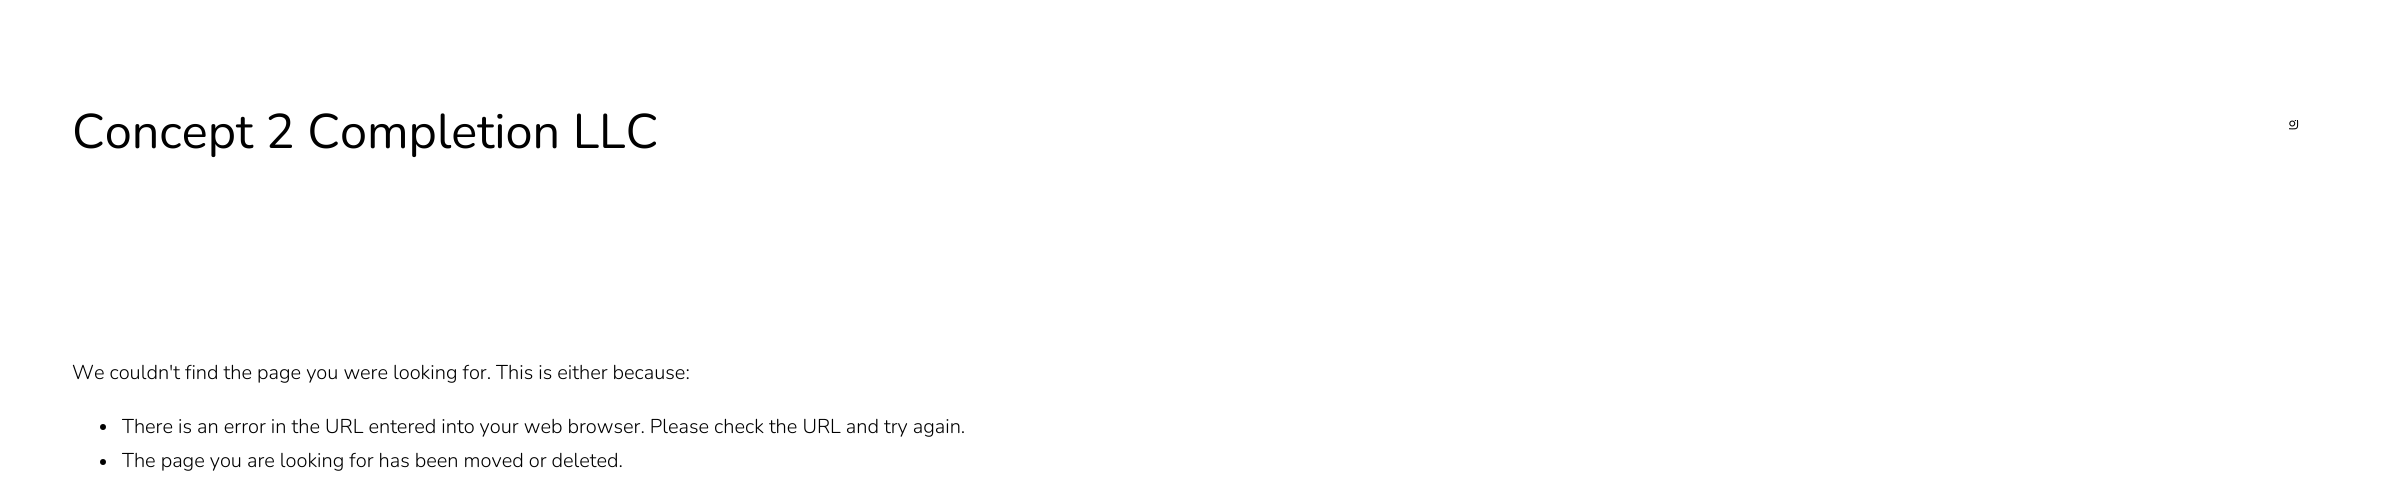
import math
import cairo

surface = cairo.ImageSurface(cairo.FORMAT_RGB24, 2385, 503)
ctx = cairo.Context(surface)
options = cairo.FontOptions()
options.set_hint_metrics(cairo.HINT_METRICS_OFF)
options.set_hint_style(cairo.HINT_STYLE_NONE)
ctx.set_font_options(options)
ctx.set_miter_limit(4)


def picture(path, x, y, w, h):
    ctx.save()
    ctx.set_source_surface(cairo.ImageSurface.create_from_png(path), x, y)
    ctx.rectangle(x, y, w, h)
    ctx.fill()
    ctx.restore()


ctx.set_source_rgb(1, 1, 1)
ctx.paint()
ctx.select_font_face("Nunito")
ctx.set_font_size(48.6)
ctx.set_source_rgb(0, 0, 0)
ctx.move_to(72, 148)
ctx.show_text("Concept 2 Completion LLC")
picture("img1.png", 2289, 120, 10, 10)
ctx.select_font_face("Nunito Light")
ctx.set_font_size(20)
ctx.move_to(72, 379)
ctx.show_text("We couldn't find the page you were looking for. This is either because:")
ctx.new_path()
ctx.arc(103, 427, 3, 0, 2 * math.pi)
ctx.fill()
ctx.move_to(122, 433)
ctx.show_text("There is an error in the URL entered into your web browser. Please check the URL and try again.")
ctx.new_path()
ctx.arc(103, 462, 3, 0, 2 * math.pi)
ctx.fill()
ctx.move_to(122, 467)
ctx.show_text("The page you are looking for has been moved or deleted.")
surface.write_to_png("page.png")
